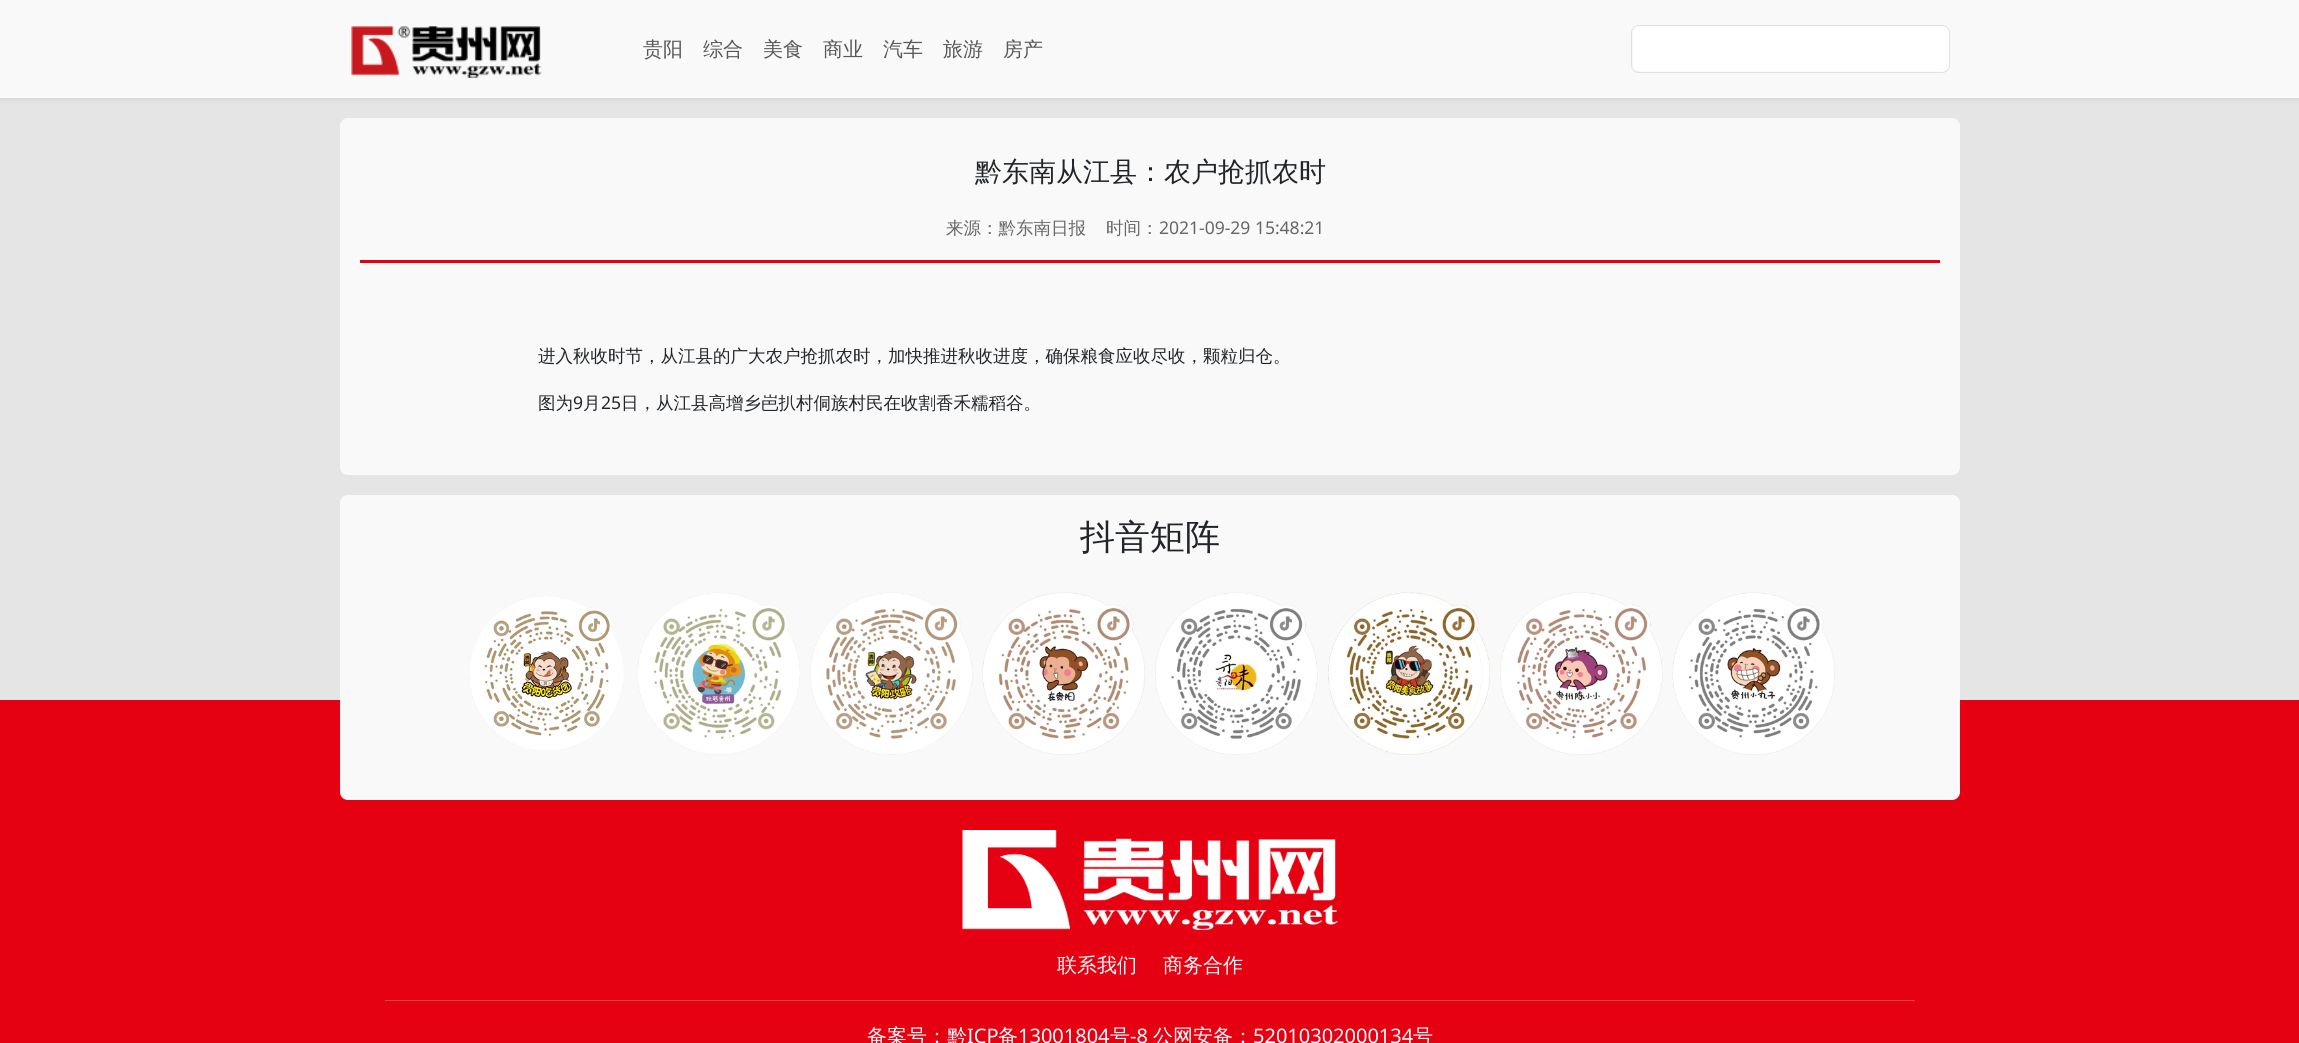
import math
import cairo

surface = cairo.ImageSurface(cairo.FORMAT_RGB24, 2299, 1043)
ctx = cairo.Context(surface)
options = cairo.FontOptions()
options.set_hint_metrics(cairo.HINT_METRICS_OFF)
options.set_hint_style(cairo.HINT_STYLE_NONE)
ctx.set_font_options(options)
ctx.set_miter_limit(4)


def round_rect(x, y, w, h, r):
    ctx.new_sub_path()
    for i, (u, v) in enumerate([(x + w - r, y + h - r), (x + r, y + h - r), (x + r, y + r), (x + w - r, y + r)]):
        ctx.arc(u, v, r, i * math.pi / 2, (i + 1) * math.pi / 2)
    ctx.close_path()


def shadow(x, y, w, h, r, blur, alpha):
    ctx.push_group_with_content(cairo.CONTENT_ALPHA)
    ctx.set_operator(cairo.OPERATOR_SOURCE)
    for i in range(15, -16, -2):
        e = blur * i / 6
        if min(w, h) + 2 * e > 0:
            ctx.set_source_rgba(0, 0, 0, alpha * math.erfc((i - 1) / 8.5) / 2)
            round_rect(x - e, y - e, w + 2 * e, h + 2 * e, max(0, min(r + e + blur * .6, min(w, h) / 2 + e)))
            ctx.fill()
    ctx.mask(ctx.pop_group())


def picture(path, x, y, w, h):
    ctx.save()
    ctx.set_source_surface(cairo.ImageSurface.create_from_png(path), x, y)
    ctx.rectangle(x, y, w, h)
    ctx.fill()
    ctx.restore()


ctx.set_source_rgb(0.898, 0.898, 0.898)
ctx.paint()
ctx.set_source_rgb(0, 0, 0)
shadow(0, 3, 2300, 97, 0, 2.5, 0.07)
ctx.set_source_rgb(0.976, 0.976, 0.976)
ctx.rectangle(0, 0, 2299, 98)
ctx.fill()
picture("img1.png", 351, 26, 191, 52)
ctx.select_font_face("WenQuanYi Zen Hei Medium")
ctx.set_font_size(20)
ctx.set_source_rgb(0.341, 0.341, 0.341)
ctx.move_to(643, 56)
ctx.show_text("贵阳")
ctx.move_to(703, 56)
ctx.show_text("综合")
ctx.move_to(763, 56)
ctx.show_text("美食")
ctx.move_to(823, 56)
ctx.show_text("商业")
ctx.move_to(883, 56)
ctx.show_text("汽车")
ctx.move_to(943, 56)
ctx.show_text("旅游")
ctx.move_to(1003, 56)
ctx.show_text("房产")
ctx.set_source_rgb(1, 1, 1)
round_rect(1633, 26, 316, 45, 6)
ctx.fill()
round_rect(1631.5, 25.5, 318, 47, 7.5)
ctx.set_source_rgb(0.871, 0.886, 0.902)
ctx.set_line_width(1)
ctx.stroke()
ctx.set_source_rgb(0.976, 0.976, 0.976)
round_rect(340, 118, 1620, 357, 8)
ctx.fill()
ctx.set_font_size(27)
ctx.set_source_rgb(0.129, 0.145, 0.161)
ctx.move_to(975, 181)
ctx.show_text("黔东南从江县：农户抢抓农时")
ctx.set_source_rgb(0.898, 0, 0.071)
ctx.rectangle(360, 260, 1580, 3)
ctx.fill()
ctx.set_font_size(17.5)
ctx.set_source_rgb(0.4, 0.4, 0.4)
ctx.move_to(946, 234)
ctx.show_text("来源：黔东南日报")
ctx.move_to(1106, 234)
ctx.show_text("时间：")
ctx.select_font_face("Noto Sans")
ctx.move_to(1159, 234)
ctx.show_text("2021-09-29 15:48:21")
ctx.select_font_face("WenQuanYi Zen Hei Medium")
ctx.set_source_rgb(0.129, 0.145, 0.161)
ctx.move_to(538, 362)
ctx.show_text("进入秋收时节，从江县的广大农户抢抓农时，加快推进秋收进度，确保粮食应收尽收，颗粒归仓。")
ctx.move_to(538, 409)
ctx.show_text("图为")
ctx.select_font_face("Noto Sans")
ctx.move_to(573, 409)
ctx.show_text("9")
ctx.select_font_face("WenQuanYi Zen Hei Medium")
ctx.move_to(583, 409)
ctx.show_text("月")
ctx.select_font_face("Noto Sans")
ctx.move_to(601, 409)
ctx.show_text("25")
ctx.select_font_face("WenQuanYi Zen Hei Medium")
ctx.move_to(621, 409)
ctx.show_text("日，从江县高增乡岜扒村侗族村民在收割香禾糯稻谷。")
ctx.set_source_rgb(0.898, 0, 0.071)
ctx.rectangle(0, 700, 2299, 343)
ctx.fill()
ctx.set_source_rgb(0.976, 0.976, 0.976)
round_rect(340, 495, 1620, 305, 8)
ctx.fill()
ctx.set_font_size(35)
ctx.set_source_rgb(0.129, 0.145, 0.161)
ctx.move_to(1080, 549)
ctx.show_text("抖音矩阵")
picture("img2.png", 468, 596, 156, 156)
picture("img3.png", 637, 592, 163, 163)
picture("img4.png", 810, 592, 163, 163)
picture("img5.png", 982, 592, 163, 163)
picture("img6.png", 1155, 592, 163, 163)
picture("img7.png", 1328, 592, 162, 163)
picture("img8.png", 1500, 592, 163, 163)
picture("img9.png", 1672, 592, 163, 163)
picture("img10.png", 962, 830, 376, 100)
ctx.set_font_size(20)
ctx.set_source_rgb(1, 1, 1)
ctx.move_to(1057, 972)
ctx.show_text("联系我们")
ctx.move_to(1163, 972)
ctx.show_text("商务合作")
ctx.set_source_rgb(0.925, 0.251, 0.302)
ctx.rectangle(385, 1000, 1530, 1)
ctx.fill()
ctx.set_source_rgb(1, 1, 1)
ctx.move_to(867, 1043)
ctx.show_text("备案号：黔")
ctx.select_font_face("Noto Sans")
ctx.move_to(967, 1043)
ctx.show_text("ICP")
ctx.select_font_face("WenQuanYi Zen Hei Medium")
ctx.move_to(998, 1043)
ctx.show_text("备")
ctx.select_font_face("Noto Sans")
ctx.move_to(1018, 1043)
ctx.show_text("13001804")
ctx.select_font_face("WenQuanYi Zen Hei Medium")
ctx.move_to(1110, 1043)
ctx.show_text("号")
ctx.select_font_face("Noto Sans")
ctx.move_to(1130, 1043)
ctx.show_text("-8")
ctx.select_font_face("WenQuanYi Zen Hei Medium")
ctx.move_to(1153, 1043)
ctx.show_text("公网安备：")
ctx.select_font_face("Noto Sans")
ctx.move_to(1253, 1043)
ctx.show_text("52010302000134")
ctx.select_font_face("WenQuanYi Zen Hei Medium")
ctx.move_to(1413, 1043)
ctx.show_text("号")
surface.write_to_png("page.png")
